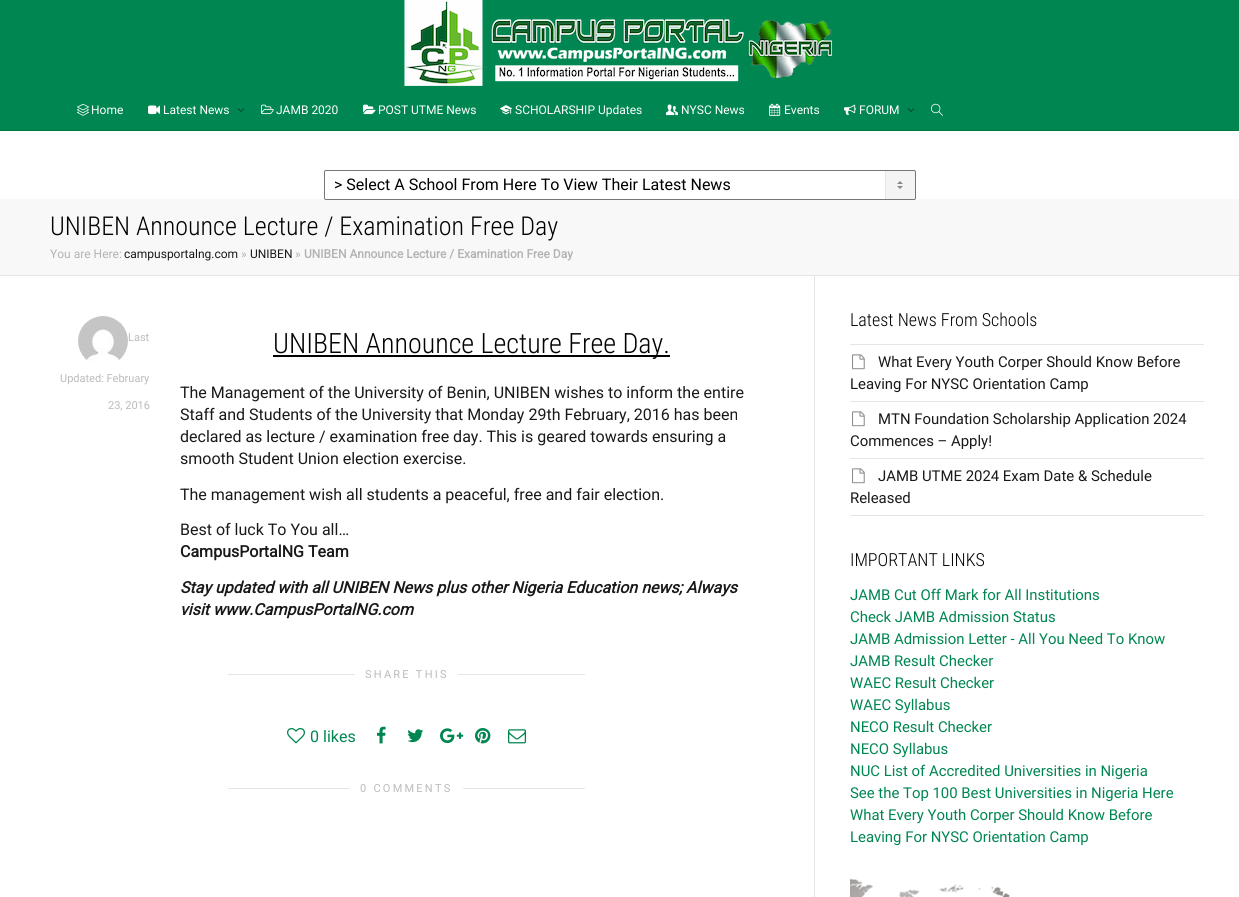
import math
import cairo

surface = cairo.ImageSurface(cairo.FORMAT_RGB24, 1239, 897)
ctx = cairo.Context(surface)
options = cairo.FontOptions()
options.set_hint_metrics(cairo.HINT_METRICS_OFF)
options.set_hint_style(cairo.HINT_STYLE_NONE)
ctx.set_font_options(options)
ctx.set_miter_limit(4)


def spaced_text(x, y, s, letter, word):
    ctx.move_to(x, y)
    for ch in s:
        ctx.show_text(ch)
        ctx.rel_move_to(letter + word * (ch == ' '), 0)


def round_rect(x, y, w, h, r):
    ctx.new_sub_path()
    for i, (u, v) in enumerate([(x + w - r, y + h - r), (x + r, y + h - r), (x + r, y + r), (x + w - r, y + r)]):
        ctx.arc(u, v, r, i * math.pi / 2, (i + 1) * math.pi / 2)
    ctx.close_path()


def picture(path, x, y, w, h):
    ctx.save()
    ctx.set_source_surface(cairo.ImageSurface.create_from_png(path), x, y)
    ctx.rectangle(x, y, w, h)
    ctx.fill()
    ctx.restore()


ctx.set_source_rgb(1, 1, 1)
ctx.paint()
ctx.set_source_rgb(0, 0.525, 0.318)
ctx.rectangle(0, 0, 1239, 130)
ctx.fill()
ctx.set_source_rgb(0, 0.463, 0.251)
ctx.rectangle(0, 130, 1239, 1)
ctx.fill()
picture("img1.png", 404, 0, 429, 86)
picture("img2.png", 77, 103, 12, 13)
ctx.select_font_face("Roboto")
ctx.set_font_size(12)
ctx.set_source_rgb(1, 1, 1)
ctx.move_to(91, 114)
ctx.show_text("Home")
picture("img3.png", 148, 105, 12, 10)
ctx.move_to(163, 114)
ctx.show_text("Latest News")
picture("img4.png", 237, 108, 8, 4)
picture("img5.png", 261, 104, 13, 11)
ctx.move_to(276, 114)
ctx.show_text("JAMB 2020")
picture("img6.png", 363, 104, 13, 11)
ctx.move_to(378, 114)
ctx.show_text("POST UTME News")
picture("img7.png", 500, 105, 12, 10)
ctx.move_to(515, 114)
ctx.show_text("SCHOLARSHIP Updates")
picture("img8.png", 666, 104, 12, 12)
ctx.move_to(681, 114)
ctx.show_text("NYSC News")
picture("img9.png", 769, 103, 12, 13)
ctx.move_to(784, 114)
ctx.show_text("Events")
picture("img10.png", 844, 104, 12, 11)
ctx.move_to(859, 114)
ctx.show_text("FORUM")
picture("img4.png", 907, 108, 8, 4)
picture("img11.png", 931, 103, 12, 13)
ctx.set_source_rgb(0.969, 0.969, 0.969)
ctx.rectangle(0, 199, 1239, 76)
ctx.fill()
picture("img12.png", 885, 170, 30, 30)
round_rect(324.5, 170.5, 591, 29, 1.5)
ctx.set_source_rgb(0.463, 0.463, 0.463)
ctx.set_line_width(1)
ctx.stroke()
ctx.set_font_size(16)
ctx.set_source_rgb(0, 0, 0)
ctx.move_to(334, 190)
ctx.show_text("> Select A School From Here To View Their Latest News")
ctx.set_source_rgb(0.898, 0.898, 0.898)
ctx.rectangle(0, 275, 1239, 1)
ctx.fill()
ctx.select_font_face("Roboto Condensed Light")
ctx.set_font_size(26)
ctx.set_source_rgb(0, 0, 0)
ctx.move_to(50, 235)
ctx.show_text("UNIBEN Announce Lecture / Examination Free Day")
ctx.select_font_face("Roboto")
ctx.set_font_size(12)
ctx.set_source_rgb(0.702, 0.702, 0.702)
ctx.move_to(50, 258)
ctx.show_text("You are Here:")
ctx.set_source_rgb(0.098, 0.098, 0.098)
ctx.move_to(124, 258)
ctx.show_text("campusportalng.com")
ctx.set_source_rgb(0.702, 0.702, 0.702)
ctx.move_to(241, 258)
ctx.show_text("»")
ctx.set_source_rgb(0.098, 0.098, 0.098)
ctx.move_to(250, 258)
ctx.show_text("UNIBEN")
ctx.set_source_rgb(0.702, 0.702, 0.702)
ctx.move_to(295, 258)
ctx.show_text("»")
ctx.select_font_face("Roboto", cairo.FONT_SLANT_NORMAL, cairo.FONT_WEIGHT_BOLD)
ctx.move_to(304, 258)
ctx.show_text("UNIBEN Announce Lecture / Examination Free Day")
ctx.set_source_rgb(0.898, 0.898, 0.898)
ctx.rectangle(814, 276, 1, 621)
ctx.fill()
picture("img13.png", 78, 316, 50, 47)
ctx.select_font_face("Roboto")
ctx.set_font_size(11)
ctx.set_source_rgb(0.733, 0.733, 0.733)
ctx.move_to(128, 341)
ctx.show_text("Last")
ctx.move_to(60, 382)
ctx.show_text("Updated: February")
ctx.move_to(108, 409)
ctx.show_text("23, 2016")
ctx.set_source_rgb(0, 0, 0)
ctx.rectangle(273, 355, 397, 2)
ctx.fill()
ctx.select_font_face("Roboto Condensed Light")
ctx.set_font_size(28)
ctx.move_to(273, 353)
ctx.show_text("UNIBEN Announce Lecture Free Day.")
ctx.select_font_face("Roboto")
ctx.set_font_size(16)
ctx.set_source_rgb(0.098, 0.098, 0.098)
ctx.move_to(180, 398)
ctx.show_text("The Management of the University of Benin, UNIBEN wishes to inform the entire")
ctx.move_to(180, 420)
ctx.show_text("Staff and Students of the University that Monday 29th February, 2016 has been")
ctx.move_to(180, 442)
ctx.show_text("declared as lecture / examination free day. This is geared towards ensuring a")
ctx.move_to(180, 464)
ctx.show_text("smooth Student Union election exercise.")
ctx.move_to(180, 500)
ctx.show_text("The management wish all students a peaceful, free and fair election.")
ctx.move_to(180, 535)
ctx.show_text("Best of luck To You all…")
ctx.select_font_face("Roboto", cairo.FONT_SLANT_NORMAL, cairo.FONT_WEIGHT_BOLD)
ctx.move_to(180, 557)
ctx.show_text("CampusPortalNG Team")
ctx.select_font_face("Roboto", cairo.FONT_SLANT_ITALIC, cairo.FONT_WEIGHT_BOLD)
ctx.move_to(180, 593)
ctx.show_text("Stay updated with all UNIBEN News plus other Nigeria Education news; Always")
ctx.move_to(180, 615)
ctx.show_text("visit www.CampusPortalNG.com")
ctx.set_source_rgb(0.898, 0.898, 0.898)
ctx.rectangle(228, 674, 357, 1)
ctx.fill()
ctx.set_source_rgb(1, 1, 1)
round_rect(355, 666, 103, 17, 2)
ctx.fill()
ctx.select_font_face("Roboto")
ctx.set_font_size(11)
ctx.set_source_rgb(0.733, 0.733, 0.733)
spaced_text(365, 678, "SHARE THIS", 2.25, 0)
picture("img14.png", 287, 728, 18, 16)
ctx.set_font_size(16)
ctx.set_source_rgb(0, 0.525, 0.318)
ctx.move_to(310, 742)
ctx.show_text("0")
ctx.move_to(323, 742)
ctx.show_text("likes")
picture("img15.png", 376, 726, 10, 18)
picture("img16.png", 407, 729, 17, 14)
picture("img17.png", 440, 728, 24, 16)
picture("img18.png", 475, 728, 16, 16)
picture("img19.png", 508, 729, 18, 15)
ctx.set_source_rgb(0.898, 0.898, 0.898)
ctx.rectangle(228, 788, 357, 1)
ctx.fill()
ctx.set_source_rgb(1, 1, 1)
round_rect(350, 780, 113, 17, 2)
ctx.fill()
ctx.set_font_size(11)
ctx.set_source_rgb(0.733, 0.733, 0.733)
spaced_text(360, 792, "0 COMMENTS", 2.25, 0)
ctx.select_font_face("Roboto Condensed Light")
ctx.set_font_size(18)
ctx.set_source_rgb(0, 0, 0)
ctx.move_to(850, 326)
ctx.show_text("Latest News From Schools")
ctx.set_source_rgb(0.898, 0.898, 0.898)
ctx.rectangle(850, 344, 354, 1)
ctx.fill()
ctx.rectangle(850, 401, 354, 1)
ctx.fill()
picture("img20.png", 852, 354, 13, 16)
ctx.select_font_face("Roboto")
ctx.set_font_size(14.9)
ctx.set_source_rgb(0.098, 0.098, 0.098)
ctx.move_to(878, 367)
ctx.show_text("What Every Youth Corper Should Know Before")
ctx.move_to(850, 389)
ctx.show_text("Leaving For NYSC Orientation Camp")
ctx.set_source_rgb(0.898, 0.898, 0.898)
ctx.rectangle(850, 458, 354, 1)
ctx.fill()
picture("img20.png", 852, 411, 13, 16)
ctx.set_source_rgb(0.098, 0.098, 0.098)
ctx.move_to(878, 424)
ctx.show_text("MTN Foundation Scholarship Application 2024")
ctx.move_to(850, 446)
ctx.show_text("Commences – Apply!")
ctx.set_source_rgb(0.898, 0.898, 0.898)
ctx.rectangle(850, 515, 354, 1)
ctx.fill()
picture("img20.png", 852, 468, 13, 16)
ctx.set_source_rgb(0.098, 0.098, 0.098)
ctx.move_to(878, 481)
ctx.show_text("JAMB UTME 2024 Exam Date & Schedule")
ctx.move_to(850, 503)
ctx.show_text("Released")
ctx.select_font_face("Roboto Condensed Light")
ctx.set_font_size(18)
ctx.set_source_rgb(0, 0, 0)
ctx.move_to(850, 566)
ctx.show_text("IMPORTANT LINKS")
ctx.select_font_face("Roboto")
ctx.set_font_size(14.9)
ctx.set_source_rgb(0, 0.525, 0.318)
ctx.move_to(850, 600)
ctx.show_text("JAMB Cut Off Mark for All Institutions")
ctx.move_to(850, 622)
ctx.show_text("Check JAMB Admission Status")
ctx.move_to(850, 644)
ctx.show_text("JAMB Admission Letter - All You Need To Know")
ctx.move_to(850, 666)
ctx.show_text("JAMB Result Checker")
ctx.move_to(850, 688)
ctx.show_text("WAEC Result Checker")
ctx.move_to(850, 710)
ctx.show_text("WAEC Syllabus")
ctx.move_to(850, 732)
ctx.show_text("NECO Result Checker")
ctx.move_to(850, 754)
ctx.show_text("NECO Syllabus")
ctx.move_to(850, 776)
ctx.show_text("NUC List of Accredited Universities in Nigeria")
ctx.move_to(850, 798)
ctx.show_text("See the Top 100 Best Universities in Nigeria Here")
ctx.move_to(850, 820)
ctx.show_text("What Every Youth Corper Should Know Before")
ctx.move_to(850, 842)
ctx.show_text("Leaving For NYSC Orientation Camp")
picture("img21.png", 850, 878, 160, 19)
surface.write_to_png("page.png")
